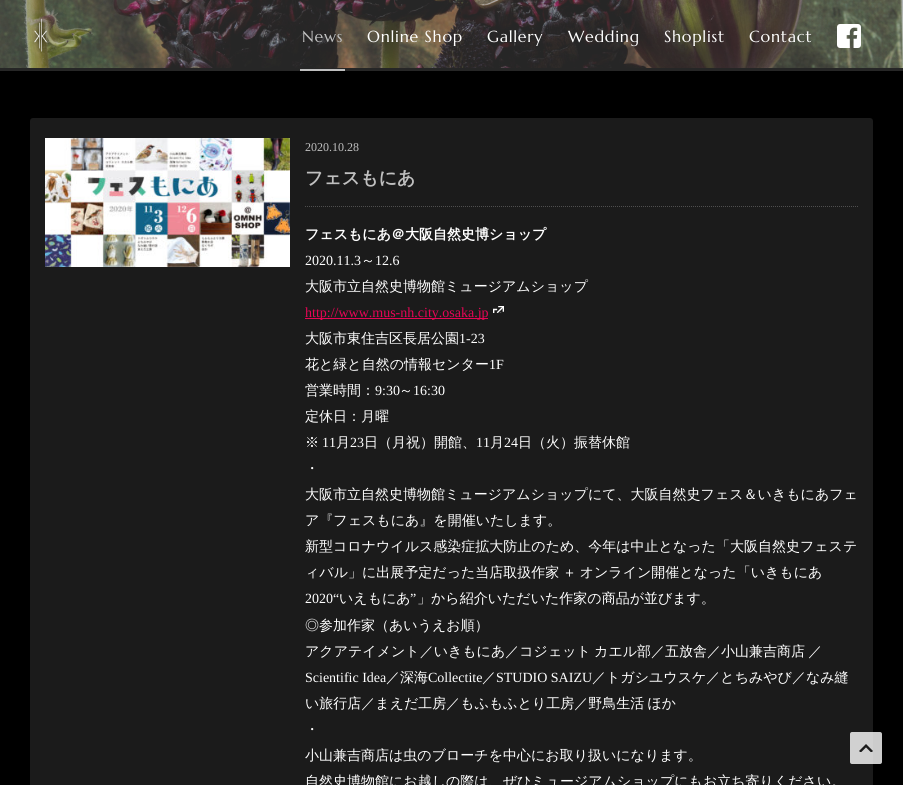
import math
import cairo

surface = cairo.ImageSurface(cairo.FORMAT_RGB24, 903, 785)
ctx = cairo.Context(surface)
options = cairo.FontOptions()
options.set_hint_metrics(cairo.HINT_METRICS_OFF)
options.set_hint_style(cairo.HINT_STYLE_NONE)
ctx.set_font_options(options)
ctx.set_miter_limit(4)


def spaced_text(x, y, s, letter, word):
    ctx.move_to(x, y)
    for ch in s:
        ctx.show_text(ch)
        ctx.rel_move_to(letter + word * (ch == ' '), 0)


def round_rect(x, y, w, h, r):
    ctx.new_sub_path()
    for i, (u, v) in enumerate([(x + w - r, y + h - r), (x + r, y + h - r), (x + r, y + r), (x + w - r, y + r)]):
        ctx.arc(u, v, r, i * math.pi / 2, (i + 1) * math.pi / 2)
    ctx.close_path()


def picture(path, x, y, w, h):
    ctx.save()
    ctx.set_source_surface(cairo.ImageSurface.create_from_png(path), x, y)
    ctx.rectangle(x, y, w, h)
    ctx.fill()
    ctx.restore()


ctx.set_source_rgb(1, 1, 1)
ctx.paint()
picture("img1.png", 0, 0, 903, 68)
ctx.set_source_rgb(0, 0, 0)
ctx.rectangle(0, 68, 903, 717)
ctx.fill()
ctx.set_source_rgba(1, 1, 1, 0.15)
ctx.rectangle(0, 0, 903, 71)
ctx.fill()
picture("img2.png", 32, 17, 17, 36)
ctx.select_font_face("Marcellus")
ctx.set_font_size(16)
ctx.set_source_rgb(0.749, 0.749, 0.749)
spaced_text(302, 42, "News", 0.75, 0)
ctx.rectangle(300, 69, 45, 2)
ctx.fill()
ctx.set_source_rgb(1, 1, 1)
spaced_text(367, 42, "Online Shop", 0.75, 0)
spaced_text(487, 42, "Gallery", 0.75, 0)
spaced_text(568, 42, "Wedding", 0.75, 0)
spaced_text(664, 42, "Shoplist", 0.75, 0)
spaced_text(749, 42, "Contact", 0.75, 0)
picture("img3.png", 837, 24, 24, 24)
ctx.set_source_rgb(0.106, 0.106, 0.106)
round_rect(30, 118, 843, 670, 3)
ctx.fill()
picture("img4.png", 45, 138, 245, 129)
ctx.select_font_face("Liberation Serif")
ctx.set_font_size(12)
ctx.set_source_rgb(0.749, 0.749, 0.749)
ctx.move_to(305, 151)
ctx.show_text("2020.10.28")
ctx.new_path()
ctx.move_to(305, 206.5)
ctx.line_to(858, 206.5)
ctx.set_source_rgb(0.31, 0.31, 0.31)
ctx.set_line_width(1)
ctx.set_dash([1, 1])
ctx.stroke()
ctx.select_font_face("WenQuanYi Zen Hei", cairo.FONT_SLANT_NORMAL, cairo.FONT_WEIGHT_BOLD)
ctx.set_font_size(18)
ctx.set_source_rgb(0.749, 0.749, 0.749)
ctx.move_to(305, 184)
ctx.show_text("フェスもにあ")
ctx.set_font_size(14)
ctx.set_source_rgb(1, 1, 1)
ctx.move_to(305, 239)
ctx.show_text("フェスもにあ＠大阪自然史博ショップ")
ctx.select_font_face("Liberation Serif")
ctx.move_to(305, 265)
ctx.show_text("2020.11.3")
ctx.select_font_face("WenQuanYi Zen Hei Medium")
ctx.move_to(361, 265)
ctx.show_text("～")
ctx.select_font_face("Liberation Serif")
ctx.move_to(375, 265)
ctx.show_text("12.6")
ctx.select_font_face("WenQuanYi Zen Hei Medium")
ctx.move_to(305, 291)
ctx.show_text("大阪市立自然史博物館ミュージアムショップ")
ctx.set_source_rgb(0.902, 0.02, 0.333)
ctx.rectangle(305, 318, 183, 1)
ctx.fill()
ctx.select_font_face("Liberation Serif")
ctx.move_to(305, 317)
ctx.show_text("http://www.mus-nh.city.osaka.jp")
picture("img5.png", 493, 306, 11, 7)
ctx.select_font_face("WenQuanYi Zen Hei Medium")
ctx.set_source_rgb(1, 1, 1)
ctx.move_to(305, 343)
ctx.show_text("大阪市東住吉区長居公園")
ctx.select_font_face("Liberation Serif")
ctx.move_to(459, 343)
ctx.show_text("1-23")
ctx.select_font_face("WenQuanYi Zen Hei Medium")
ctx.move_to(305, 369)
ctx.show_text("花と緑と自然の情報センター")
ctx.select_font_face("Liberation Serif")
ctx.move_to(489, 369)
ctx.show_text("1F")
ctx.select_font_face("WenQuanYi Zen Hei Medium")
ctx.move_to(305, 395)
ctx.show_text("営業時間：")
ctx.select_font_face("Liberation Serif")
ctx.move_to(375, 395)
ctx.show_text("9:30")
ctx.select_font_face("WenQuanYi Zen Hei Medium")
ctx.move_to(399, 395)
ctx.show_text("～")
ctx.select_font_face("Liberation Serif")
ctx.move_to(413, 395)
ctx.show_text("16:30")
ctx.select_font_face("WenQuanYi Zen Hei Medium")
ctx.move_to(305, 421)
ctx.show_text("定休日：月曜")
ctx.move_to(305, 447)
ctx.show_text("※")
ctx.select_font_face("Liberation Serif")
ctx.move_to(322, 447)
ctx.show_text("11")
ctx.select_font_face("WenQuanYi Zen Hei Medium")
ctx.move_to(336, 447)
ctx.show_text("月")
ctx.select_font_face("Liberation Serif")
ctx.move_to(350, 447)
ctx.show_text("23")
ctx.select_font_face("WenQuanYi Zen Hei Medium")
ctx.move_to(364, 447)
ctx.show_text("日（月祝）開館、")
ctx.select_font_face("Liberation Serif")
ctx.move_to(476, 447)
ctx.show_text("11")
ctx.select_font_face("WenQuanYi Zen Hei Medium")
ctx.move_to(490, 447)
ctx.show_text("月")
ctx.select_font_face("Liberation Serif")
ctx.move_to(504, 447)
ctx.show_text("24")
ctx.select_font_face("WenQuanYi Zen Hei Medium")
ctx.move_to(518, 447)
ctx.show_text("日（火）振替休館")
ctx.move_to(305, 473)
ctx.show_text("・")
ctx.move_to(305, 499)
ctx.show_text("大阪市立自然史博物館ミュージアムショップにて、大阪自然史フェス＆いきもにあフェ")
ctx.move_to(305, 525)
ctx.show_text("ア『フェスもにあ』を開催いたします。")
ctx.move_to(305, 551)
ctx.show_text("新型コロナウイルス感染症拡大防止のため、今年は中止となった「大阪自然史フェステ")
spaced_text(305, 577, "ィバル」に出展予定だった当店取扱作家 ＋ オンライン開催となった「いきもにあ", 0, -1)
ctx.select_font_face("Liberation Serif")
ctx.move_to(305, 603)
ctx.show_text("2020“")
ctx.select_font_face("WenQuanYi Zen Hei Medium")
ctx.move_to(339, 603)
ctx.show_text("いえもにあ")
ctx.select_font_face("Liberation Serif")
ctx.move_to(410, 603)
ctx.show_text("”")
ctx.select_font_face("WenQuanYi Zen Hei Medium")
ctx.move_to(417, 603)
ctx.show_text("」から紹介いただいた作家の商品が並びます。")
ctx.move_to(305, 630)
ctx.show_text("◎参加作家（あいうえお順）")
spaced_text(305, 656, "アクアテイメント／いきもにあ／コジェット カエル部／五放舎／小山兼吉商店 ／", 0, -1)
ctx.select_font_face("Liberation Serif")
ctx.move_to(305, 682)
ctx.show_text("Scientific Idea")
ctx.select_font_face("WenQuanYi Zen Hei Medium")
ctx.move_to(386, 682)
ctx.show_text("／深海")
ctx.select_font_face("Liberation Serif")
ctx.move_to(428, 682)
ctx.show_text("Collectite")
ctx.select_font_face("WenQuanYi Zen Hei Medium")
ctx.move_to(482, 682)
ctx.show_text("／")
ctx.select_font_face("Liberation Serif")
ctx.move_to(496, 682)
ctx.show_text("STUDIO SAIZU")
ctx.select_font_face("WenQuanYi Zen Hei Medium")
ctx.move_to(592, 682)
ctx.show_text("／トガシユウスケ／とちみやび／なみ縫")
spaced_text(305, 708, "い旅行店／まえだ工房／もふもふとり工房／野鳥生活 ほか", 0, -1)
ctx.move_to(305, 734)
ctx.show_text("・")
ctx.move_to(305, 760)
ctx.show_text("小山兼吉商店は虫のブローチを中心にお取り扱いになります。")
ctx.move_to(305, 786)
ctx.show_text("自然史博物館にお越しの際は、ぜひミュージアムショップにもお立ち寄りください。")
ctx.set_source_rgba(1, 1, 1, 0.8)
round_rect(850, 732, 32, 32, 2)
ctx.fill()
picture("img6.png", 859, 744, 14, 8)
surface.write_to_png("page.png")
